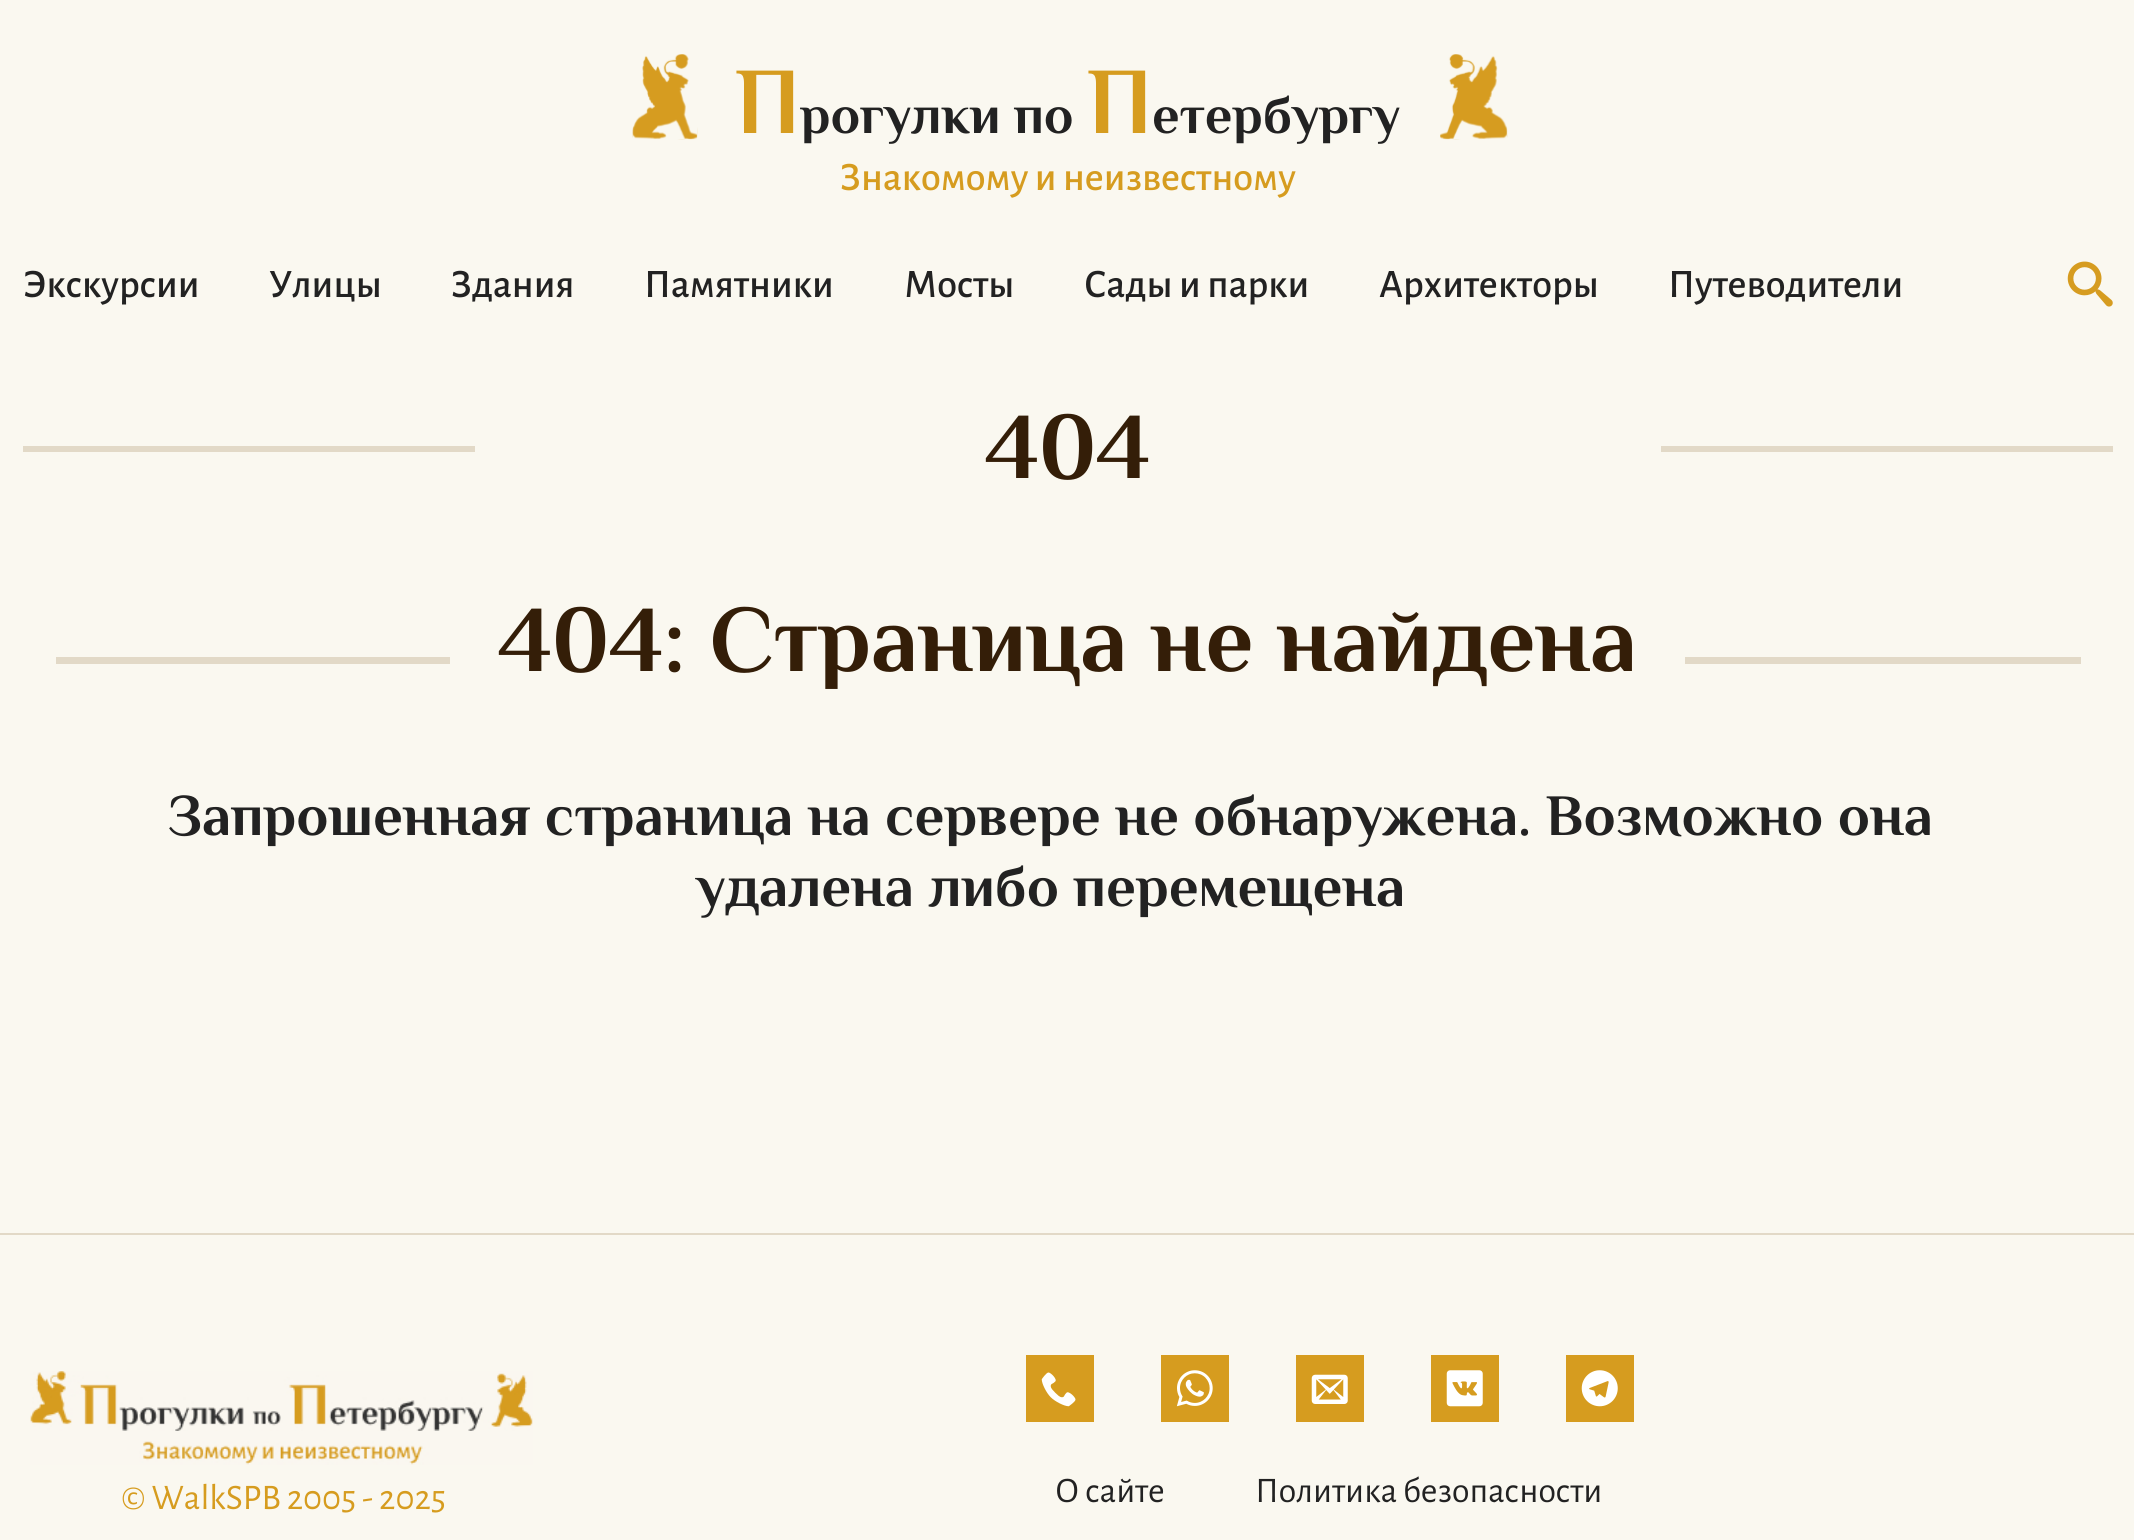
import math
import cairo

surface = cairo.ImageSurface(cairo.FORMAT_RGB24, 2134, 1540)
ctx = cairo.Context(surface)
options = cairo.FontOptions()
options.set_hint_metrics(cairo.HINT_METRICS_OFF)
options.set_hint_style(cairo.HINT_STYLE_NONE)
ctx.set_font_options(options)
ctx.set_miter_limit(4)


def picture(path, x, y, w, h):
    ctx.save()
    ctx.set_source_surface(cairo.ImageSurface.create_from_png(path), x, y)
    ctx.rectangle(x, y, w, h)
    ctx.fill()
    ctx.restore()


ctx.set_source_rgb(0.98, 0.969, 0.941)
ctx.paint()
picture("img1.png", 632, 54, 66, 86)
ctx.select_font_face("Philosopher", cairo.FONT_SLANT_NORMAL, cairo.FONT_WEIGHT_BOLD)
ctx.set_font_size(94.5)
ctx.set_source_rgb(0.839, 0.612, 0.122)
ctx.move_to(735, 133)
ctx.show_text("П")
ctx.set_font_size(54)
ctx.set_source_rgb(0.133, 0.133, 0.133)
ctx.move_to(800, 133)
ctx.show_text("рогулки по")
ctx.set_font_size(94.5)
ctx.set_source_rgb(0.839, 0.612, 0.122)
ctx.move_to(1087, 133)
ctx.show_text("П")
ctx.set_font_size(54)
ctx.set_source_rgb(0.133, 0.133, 0.133)
ctx.move_to(1152, 133)
ctx.show_text("етербургу")
picture("img2.png", 1440, 54, 68, 86)
ctx.select_font_face("Alegreya Sans Medium")
ctx.set_font_size(40.5)
ctx.set_source_rgb(0.839, 0.612, 0.122)
ctx.move_to(840, 190)
ctx.show_text("Знакомому и неизвестному")
ctx.set_source_rgb(0.133, 0.133, 0.133)
ctx.move_to(23, 297)
ctx.show_text("Экскурсии")
ctx.move_to(269, 297)
ctx.show_text("Улицы")
ctx.move_to(451, 297)
ctx.show_text("Здания")
ctx.move_to(644, 297)
ctx.show_text("Памятники")
ctx.move_to(904, 297)
ctx.show_text("Мосты")
ctx.move_to(1084, 297)
ctx.show_text("Сады и парки")
ctx.move_to(1379, 297)
ctx.show_text("Архитекторы")
ctx.move_to(1668, 297)
ctx.show_text("Путеводители")
picture("img3.png", 2067, 261, 46, 46)
ctx.set_source_rgb(0.886, 0.851, 0.78)
ctx.rectangle(23, 446, 452, 6)
ctx.fill()
ctx.select_font_face("Philosopher", cairo.FONT_SLANT_NORMAL, cairo.FONT_WEIGHT_BOLD)
ctx.set_font_size(94.5)
ctx.set_source_rgb(0.204, 0.118, 0.035)
ctx.move_to(985, 478)
ctx.show_text("404")
ctx.set_source_rgb(0.886, 0.851, 0.78)
ctx.rectangle(1661, 446, 452, 6)
ctx.fill()
ctx.rectangle(56, 657, 394, 7)
ctx.fill()
ctx.set_source_rgb(0.204, 0.118, 0.035)
ctx.move_to(498, 671)
ctx.show_text("404: Страница не найдена")
ctx.set_source_rgb(0.886, 0.851, 0.78)
ctx.rectangle(1685, 657, 396, 7)
ctx.fill()
ctx.set_font_size(58.5)
ctx.set_source_rgb(0.133, 0.133, 0.133)
ctx.move_to(168, 835)
ctx.show_text("Запрошенная страница на сервере не обнаружена. Возможно она")
ctx.move_to(696, 906)
ctx.show_text("удалена либо перемещена")
ctx.set_source_rgb(0.886, 0.851, 0.78)
ctx.rectangle(0, 1233, 2134, 2)
ctx.fill()
picture("img4.png", 30, 1371, 503, 94)
ctx.select_font_face("Alegreya Sans")
ctx.set_font_size(36)
ctx.set_source_rgb(0.839, 0.612, 0.122)
ctx.move_to(121, 1509)
ctx.show_text("© WalkSPB 2005 - 2025")
ctx.rectangle(1026, 1355, 68, 67)
ctx.fill()
picture("img5.png", 1041, 1372, 35, 35)
ctx.rectangle(1161, 1355, 68, 67)
ctx.fill()
picture("img6.png", 1176, 1370, 37, 37)
ctx.rectangle(1296, 1355, 68, 67)
ctx.fill()
picture("img7.png", 1311, 1374, 37, 30)
ctx.rectangle(1431, 1355, 68, 67)
ctx.fill()
picture("img8.png", 1446, 1370, 37, 37)
ctx.rectangle(1566, 1355, 68, 67)
ctx.fill()
picture("img9.png", 1581, 1370, 37, 37)
ctx.set_source_rgb(0.133, 0.133, 0.133)
ctx.move_to(1055, 1502)
ctx.show_text("О сайте")
ctx.move_to(1255, 1502)
ctx.show_text("Политика безопасности")
surface.write_to_png("page.png")
